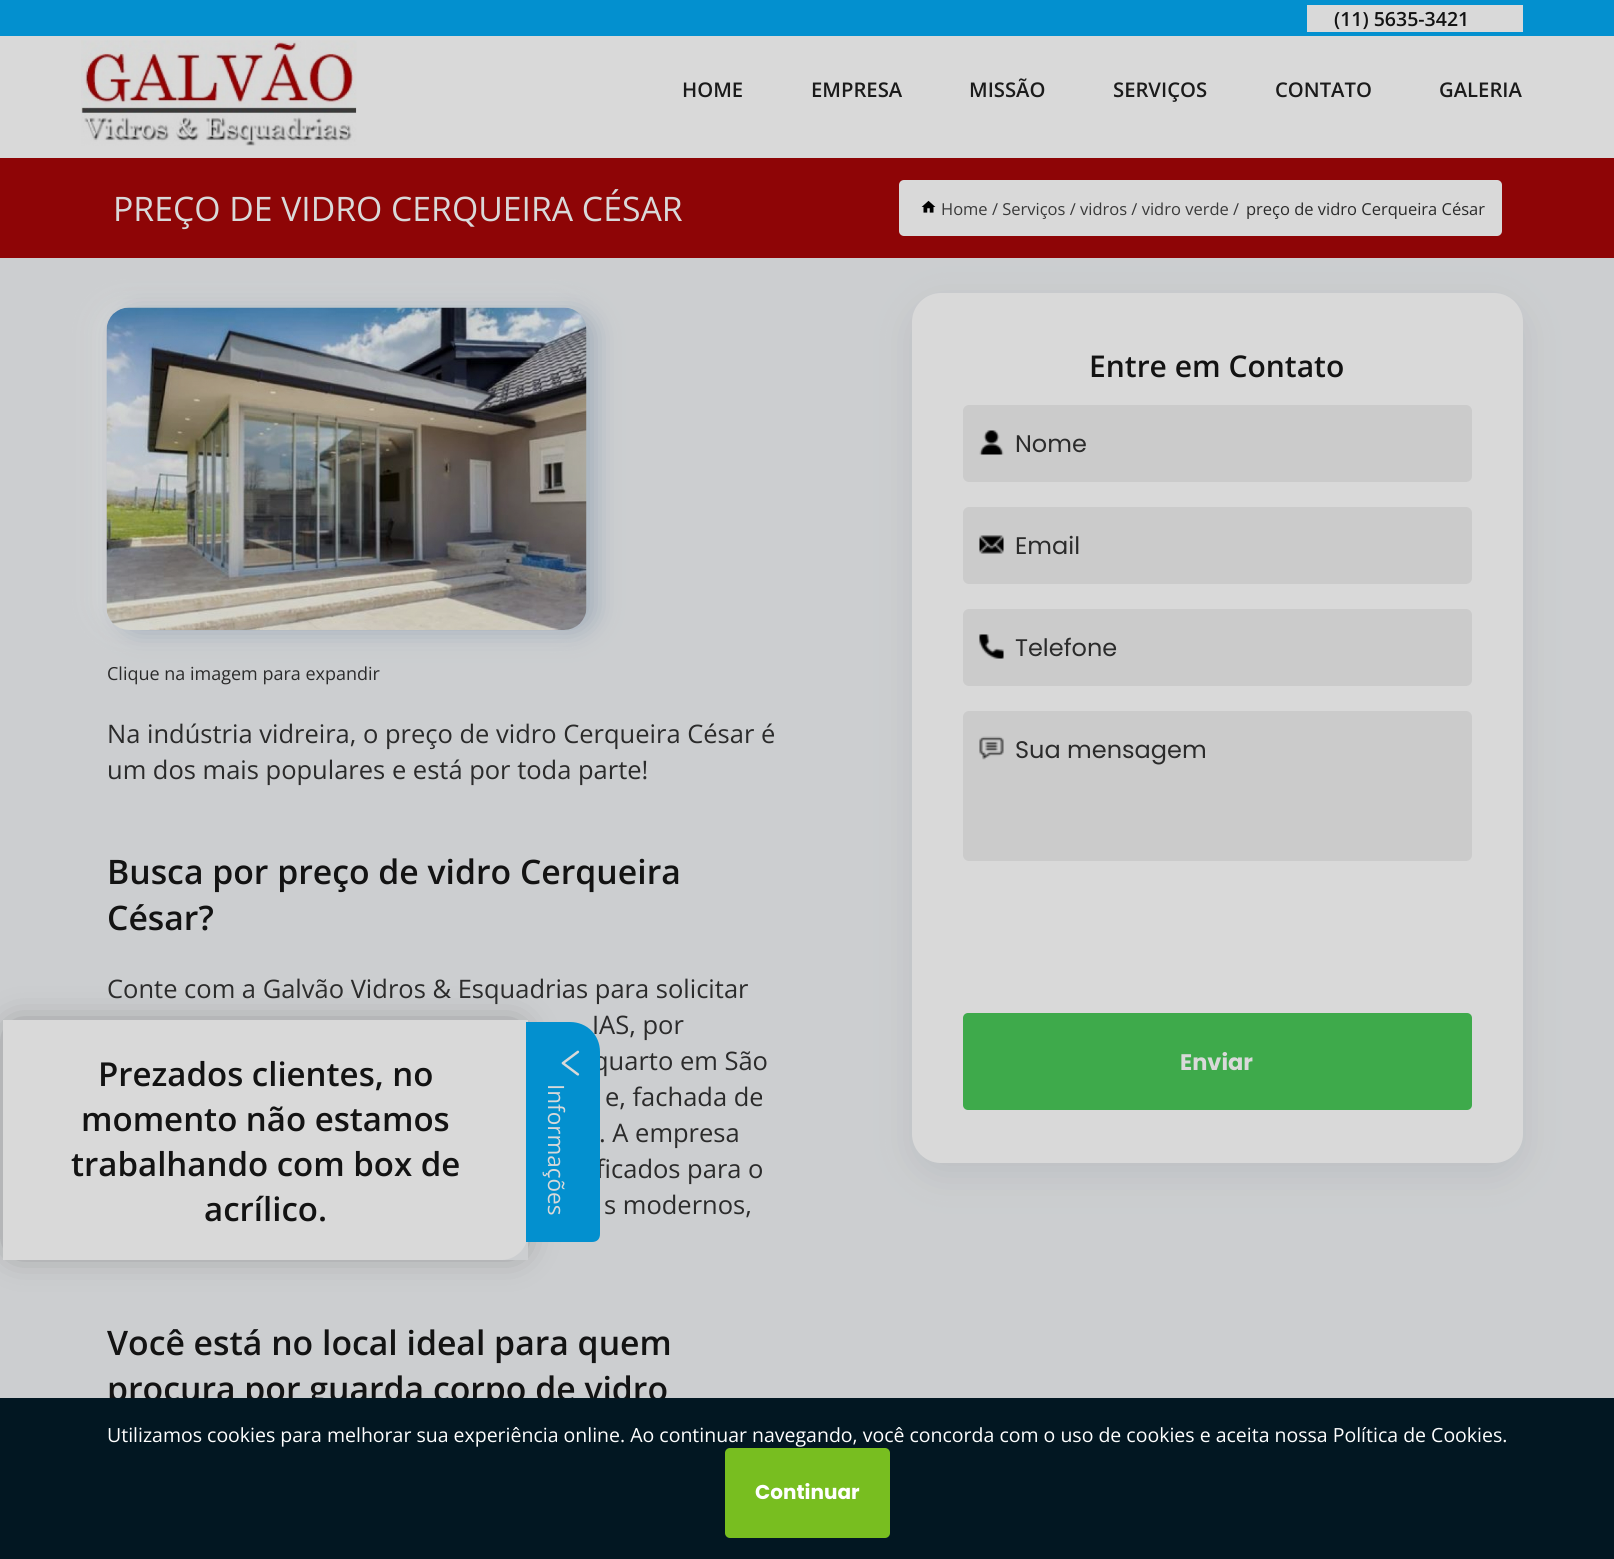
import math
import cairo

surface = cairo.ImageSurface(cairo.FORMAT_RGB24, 1614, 1559)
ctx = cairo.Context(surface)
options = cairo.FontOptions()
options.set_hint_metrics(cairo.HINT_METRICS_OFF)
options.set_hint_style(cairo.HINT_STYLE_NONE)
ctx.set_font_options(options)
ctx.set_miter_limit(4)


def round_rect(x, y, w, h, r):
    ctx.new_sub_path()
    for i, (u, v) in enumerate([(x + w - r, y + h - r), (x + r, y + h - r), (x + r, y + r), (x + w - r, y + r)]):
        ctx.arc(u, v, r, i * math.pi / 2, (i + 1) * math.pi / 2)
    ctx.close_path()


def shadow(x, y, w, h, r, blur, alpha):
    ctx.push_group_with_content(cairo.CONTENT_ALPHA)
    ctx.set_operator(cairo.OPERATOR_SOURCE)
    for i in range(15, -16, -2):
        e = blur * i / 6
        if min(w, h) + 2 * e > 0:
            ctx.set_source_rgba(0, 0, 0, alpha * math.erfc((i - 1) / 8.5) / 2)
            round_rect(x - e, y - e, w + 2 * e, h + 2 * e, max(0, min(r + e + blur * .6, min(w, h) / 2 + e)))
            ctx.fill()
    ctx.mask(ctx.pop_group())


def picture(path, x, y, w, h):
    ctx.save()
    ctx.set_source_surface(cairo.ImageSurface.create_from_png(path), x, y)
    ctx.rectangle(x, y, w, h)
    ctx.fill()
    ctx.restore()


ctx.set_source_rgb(0.8, 0.808, 0.816)
ctx.paint()
ctx.set_source_rgb(0.851, 0.851, 0.851)
ctx.rectangle(0, 36, 1614, 122)
ctx.fill()
ctx.set_source_rgb(0.012, 0.565, 0.812)
ctx.rectangle(0, 0, 1614, 36)
ctx.fill()
ctx.set_source_rgb(0.851, 0.851, 0.851)
ctx.rectangle(1307, 5, 216, 27)
ctx.fill()
ctx.select_font_face("Open Sans SemiBold")
ctx.set_font_size(19.5)
ctx.set_source_rgb(0.078, 0.078, 0.078)
ctx.move_to(1334, 26)
ctx.show_text("(11) 5635-3421")
picture("img1.png", 81, 40, 276, 106)
ctx.set_font_size(20.25)
ctx.set_source_rgb(0.106, 0.106, 0.106)
ctx.move_to(682, 97)
ctx.show_text("HOME")
ctx.move_to(811, 97)
ctx.show_text("EMPRESA")
ctx.move_to(969, 97)
ctx.show_text("MISSÃO")
ctx.move_to(1113, 97)
ctx.show_text("SERVIÇOS")
ctx.move_to(1275, 97)
ctx.show_text("CONTATO")
ctx.move_to(1439, 97)
ctx.show_text("GALERIA")
ctx.set_source_rgb(0.557, 0.02, 0.024)
ctx.rectangle(0, 158, 1614, 100)
ctx.fill()
ctx.select_font_face("Open Sans")
ctx.set_font_size(33.75)
ctx.set_source_rgb(0.851, 0.851, 0.851)
ctx.move_to(113, 221)
ctx.show_text("PREÇO DE VIDRO CERQUEIRA CÉSAR")
round_rect(899, 180, 603, 56, 5)
ctx.fill()
picture("img2.png", 921, 200, 15, 13)
ctx.set_font_size(16.5)
ctx.set_source_rgb(0.227, 0.227, 0.227)
ctx.move_to(941, 215)
ctx.show_text("Home / Serviços / vidros / vidro verde /")
ctx.set_source_rgb(0.169, 0.169, 0.169)
ctx.move_to(1246, 215)
ctx.show_text("preço de vidro Cerqueira César")
ctx.set_source_rgb(0.851, 0.851, 0.851)
shadow(98, 305, 480, 322, 23, 12, 0.8)
ctx.set_source_rgb(0.455, 0.549, 0.635)
shadow(116, 311, 480, 322, 23, 12, 0.48)
picture("img3.png", 106, 307, 481, 323)
ctx.set_font_size(18)
ctx.set_source_rgb(0.169, 0.169, 0.169)
ctx.move_to(107, 680)
ctx.show_text("Clique na imagem para expandir")
ctx.set_font_size(25.5)
ctx.move_to(107, 743)
ctx.show_text("Na indústria vidreira, o preço de vidro Cerqueira César é")
ctx.move_to(107, 779)
ctx.show_text("um dos mais populares e está por toda parte!")
ctx.select_font_face("Open Sans SemiBold")
ctx.set_font_size(33.75)
ctx.set_source_rgb(0.078, 0.078, 0.078)
ctx.move_to(107, 884)
ctx.show_text("Busca por preço de vidro Cerqueira")
ctx.move_to(107, 930)
ctx.show_text("César?")
ctx.select_font_face("Open Sans")
ctx.set_font_size(25.5)
ctx.set_source_rgb(0.169, 0.169, 0.169)
ctx.move_to(107, 998)
ctx.show_text("Conte com a Galvão Vidros & Esquadrias para solicitar")
ctx.move_to(592, 1034)
ctx.show_text("IAS, por")
ctx.move_to(593, 1070)
ctx.show_text("quarto em São")
ctx.move_to(605, 1106)
ctx.show_text("e, fachada de")
ctx.move_to(599, 1142)
ctx.show_text(". A empresa")
ctx.move_to(596, 1178)
ctx.show_text("ficados para o")
ctx.move_to(604, 1214)
ctx.show_text("s modernos,")
ctx.select_font_face("Open Sans SemiBold")
ctx.set_font_size(33.75)
ctx.set_source_rgb(0.078, 0.078, 0.078)
ctx.move_to(107, 1355)
ctx.show_text("Você está no local ideal para quem")
ctx.move_to(107, 1401)
ctx.show_text("procura por guarda corpo de vidro")
ctx.set_source_rgb(0.498, 0.522, 0.549)
shadow(912, 305, 611, 870, 29, 18, 0.2)
ctx.set_source_rgb(0.851, 0.851, 0.851)
round_rect(912, 293, 611, 870, 29)
ctx.fill()
ctx.set_font_size(30)
ctx.set_source_rgb(0.078, 0.078, 0.078)
ctx.move_to(1089, 377)
ctx.show_text("Entre em Contato")
ctx.set_source_rgb(0.796, 0.796, 0.796)
round_rect(963, 405, 509, 77, 6)
ctx.fill()
picture("img4.png", 979, 430, 25, 25)
ctx.select_font_face("Poppins")
ctx.set_font_size(24)
ctx.set_source_rgb(0.169, 0.169, 0.169)
ctx.move_to(1015, 452)
ctx.show_text("Nome")
ctx.set_source_rgb(0.796, 0.796, 0.796)
round_rect(963, 507, 509, 77, 6)
ctx.fill()
picture("img5.png", 979, 535, 25, 19)
ctx.set_source_rgb(0.169, 0.169, 0.169)
ctx.move_to(1015, 554)
ctx.show_text("Email")
ctx.set_source_rgb(0.796, 0.796, 0.796)
round_rect(963, 609, 509, 77, 6)
ctx.fill()
picture("img6.png", 979, 634, 25, 25)
ctx.set_source_rgb(0.169, 0.169, 0.169)
ctx.move_to(1015, 656)
ctx.show_text("Telefone")
ctx.set_source_rgb(0.796, 0.796, 0.796)
round_rect(963, 711, 509, 150, 6)
ctx.fill()
picture("img7.png", 979, 736, 25, 24)
ctx.set_source_rgb(0.169, 0.169, 0.169)
ctx.move_to(1015, 758)
ctx.show_text("Sua mensagem")
ctx.set_source_rgb(0.243, 0.667, 0.294)
round_rect(963, 1013, 509, 97, 5)
ctx.fill()
ctx.select_font_face("Poppins", cairo.FONT_SLANT_NORMAL, cairo.FONT_WEIGHT_BOLD)
ctx.set_font_size(22.5)
ctx.set_source_rgb(0.851, 0.851, 0.851)
ctx.move_to(1180, 1070)
ctx.show_text("Enviar")
ctx.save()
ctx.set_fill_rule(cairo.FILL_RULE_EVEN_ODD)
ctx.new_path()
ctx.move_to(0, 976)
ctx.line_to(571, 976)
ctx.line_to(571, 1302)
ctx.line_to(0, 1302)
ctx.close_path()
ctx.move_to(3, 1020)
ctx.line_to(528, 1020)
ctx.line_to(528, 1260)
ctx.line_to(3, 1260)
ctx.close_path()
ctx.clip()
ctx.set_source_rgb(0.443, 0.443, 0.443)
shadow(15, 1031, 501, 216, 0, 18, 1)
ctx.restore()
ctx.new_path()
ctx.move_to(3, 1020)
ctx.line_to(528, 1020)
ctx.line_to(528, 1233)
ctx.curve_to(528, 1248, 516, 1260, 501, 1260)
ctx.line_to(3, 1260)
ctx.close_path()
ctx.fill()
ctx.select_font_face("Open Sans SemiBold")
ctx.set_font_size(33)
ctx.set_source_rgb(0.078, 0.078, 0.078)
ctx.move_to(98, 1086)
ctx.show_text("Prezados clientes, no")
ctx.move_to(81, 1131)
ctx.show_text("momento não estamos")
ctx.move_to(71, 1176)
ctx.show_text("trabalhando com box de")
ctx.move_to(204, 1221)
ctx.show_text("acrílico.")
ctx.set_source_rgb(0.012, 0.565, 0.812)
ctx.new_path()
ctx.move_to(600, 1052)
ctx.line_to(600, 1234)
ctx.curve_to(600, 1239, 597, 1242, 592, 1242)
ctx.line_to(526, 1242)
ctx.line_to(526, 1022)
ctx.line_to(570, 1022)
ctx.curve_to(587, 1022, 600, 1035, 600, 1052)
ctx.close_path()
ctx.fill()
picture("img8.png", 561, 1050, 19, 26)
ctx.select_font_face("Open Sans")
ctx.set_font_size(22.5)
ctx.set_source_rgb(0.851, 0.851, 0.851)
ctx.save()
ctx.translate(548, 1084)
ctx.rotate(90 * math.pi / 180)
ctx.move_to(0, 0)
ctx.show_text("Informações")
ctx.restore()
ctx.set_source_rgb(0.008, 0.09, 0.133)
ctx.rectangle(0, 1398, 1614, 161)
ctx.fill()
ctx.set_font_size(19.5)
ctx.set_source_rgb(1, 1, 1)
ctx.move_to(107, 1442)
ctx.show_text("Utilizamos cookies para melhorar sua experiência online. Ao continuar navegando, você concorda com o uso de cookies e aceita nossa Política de Cookies.")
ctx.set_source_rgb(0.471, 0.745, 0.125)
round_rect(725, 1448, 165, 90, 5)
ctx.fill()
ctx.select_font_face("Poppins", cairo.FONT_SLANT_NORMAL, cairo.FONT_WEIGHT_BOLD)
ctx.set_font_size(20)
ctx.set_source_rgb(1, 1, 1)
ctx.move_to(755, 1499)
ctx.show_text("Continuar")
surface.write_to_png("page.png")
